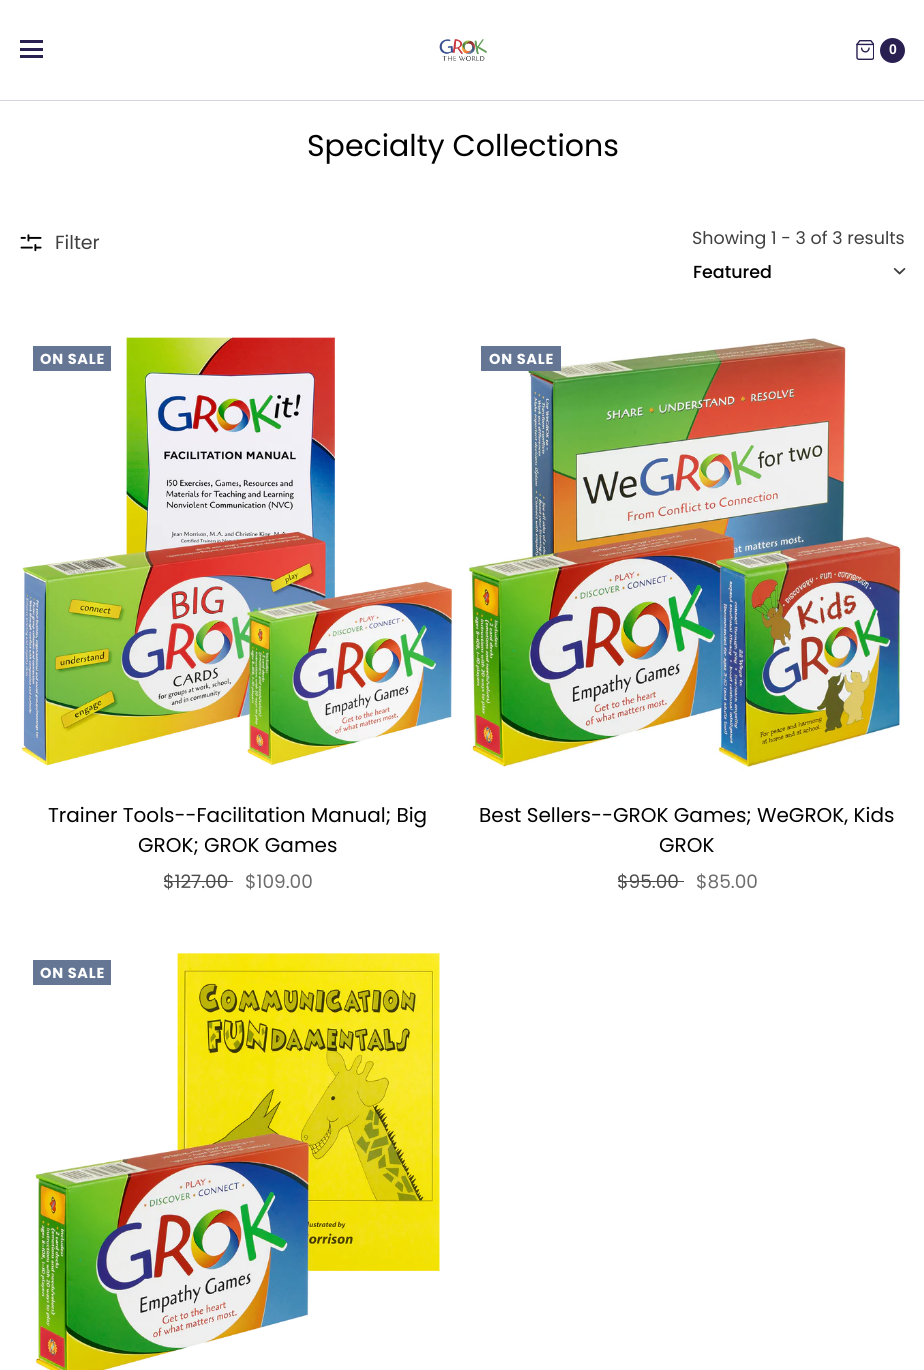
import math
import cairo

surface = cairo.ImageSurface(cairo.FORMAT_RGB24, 924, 1370)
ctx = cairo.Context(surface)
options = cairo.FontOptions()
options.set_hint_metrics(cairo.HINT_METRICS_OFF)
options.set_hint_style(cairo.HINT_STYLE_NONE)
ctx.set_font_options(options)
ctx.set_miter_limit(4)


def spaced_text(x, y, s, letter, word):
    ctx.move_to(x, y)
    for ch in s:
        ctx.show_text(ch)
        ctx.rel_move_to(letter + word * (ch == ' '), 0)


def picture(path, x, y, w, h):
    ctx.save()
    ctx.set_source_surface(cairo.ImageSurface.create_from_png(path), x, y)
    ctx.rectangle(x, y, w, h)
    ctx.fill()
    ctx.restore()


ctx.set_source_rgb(1, 1, 1)
ctx.paint()
ctx.set_source_rgb(0.843, 0.835, 0.871)
ctx.rectangle(0, 100, 924, 1)
ctx.fill()
ctx.set_source_rgb(0.161, 0.122, 0.318)
ctx.rectangle(20, 40, 23, 3)
ctx.fill()
ctx.rectangle(20, 48, 23, 3)
ctx.fill()
ctx.rectangle(20, 55, 23, 3)
ctx.fill()
picture("img1.png", 439, 39, 48, 22)
picture("img2.png", 856, 40, 18, 20)
ctx.arc(892.5, 50.5, 12.5, 0, 2 * math.pi)
ctx.fill()
ctx.select_font_face("Arimo", cairo.FONT_SLANT_NORMAL, cairo.FONT_WEIGHT_BOLD)
ctx.set_font_size(14)
ctx.set_source_rgb(1, 1, 1)
ctx.move_to(889, 54)
ctx.show_text("0")
ctx.select_font_face("Poppins")
ctx.set_font_size(30)
ctx.set_source_rgb(0, 0, 0)
ctx.move_to(307, 156)
ctx.show_text("Specialty Collections")
picture("img3.png", 20, 234, 22, 18)
ctx.set_font_size(19)
ctx.set_source_rgb(0.251, 0.251, 0.251)
ctx.move_to(55, 249)
ctx.show_text("Filter")
ctx.set_font_size(17.5)
ctx.move_to(692, 244)
ctx.show_text("Showing 1 - 3 of 3 results")
ctx.select_font_face("Poppins Medium")
ctx.set_source_rgb(0, 0, 0)
ctx.move_to(693, 278)
ctx.show_text("Featured")
picture("img4.png", 893, 268, 13, 7)
picture("img5.png", 21, 337, 432, 429)
ctx.set_source_rgb(0.392, 0.463, 0.58)
ctx.rectangle(33, 346, 78, 25)
ctx.fill()
ctx.select_font_face("Poppins", cairo.FONT_SLANT_NORMAL, cairo.FONT_WEIGHT_BOLD)
ctx.set_font_size(14.5)
ctx.set_source_rgb(1, 1, 1)
spaced_text(40, 364, "ON SALE", 0.75, 0)
ctx.select_font_face("Poppins")
ctx.set_font_size(20)
ctx.set_source_rgb(0, 0, 0)
ctx.move_to(48, 822)
ctx.show_text("Trainer Tools--Facilitation Manual; Big")
ctx.move_to(138, 852)
ctx.show_text("GROK; GROK Games")
ctx.set_font_size(18.5)
ctx.set_source_rgb(0.302, 0.302, 0.302)
ctx.move_to(163, 888)
ctx.show_text("$127.00")
ctx.rectangle(164, 881, 69, 1)
ctx.fill()
ctx.set_source_rgb(0.427, 0.427, 0.427)
ctx.move_to(245, 888)
ctx.show_text("$109.00")
picture("img6.png", 468, 338, 434, 432)
ctx.set_source_rgb(0.392, 0.463, 0.58)
ctx.rectangle(481, 346, 80, 25)
ctx.fill()
ctx.select_font_face("Poppins", cairo.FONT_SLANT_NORMAL, cairo.FONT_WEIGHT_BOLD)
ctx.set_font_size(14.5)
ctx.set_source_rgb(1, 1, 1)
spaced_text(489, 364, "ON SALE", 0.75, 0)
ctx.select_font_face("Poppins")
ctx.set_font_size(20)
ctx.set_source_rgb(0, 0, 0)
ctx.move_to(479, 822)
ctx.show_text("Best Sellers--GROK Games; WeGROK, Kids")
ctx.move_to(659, 852)
ctx.show_text("GROK")
ctx.set_font_size(18.5)
ctx.set_source_rgb(0.302, 0.302, 0.302)
ctx.move_to(617, 888)
ctx.show_text("$95.00")
ctx.rectangle(618, 881, 66, 1)
ctx.fill()
ctx.set_source_rgb(0.427, 0.427, 0.427)
ctx.move_to(696, 888)
ctx.show_text("$85.00")
picture("img7.png", 35, 953, 405, 417)
ctx.set_source_rgb(0.392, 0.463, 0.58)
ctx.rectangle(33, 960, 78, 25)
ctx.fill()
ctx.select_font_face("Poppins", cairo.FONT_SLANT_NORMAL, cairo.FONT_WEIGHT_BOLD)
ctx.set_font_size(14.5)
ctx.set_source_rgb(1, 1, 1)
spaced_text(40, 978, "ON SALE", 0.75, 0)
surface.write_to_png("page.png")
